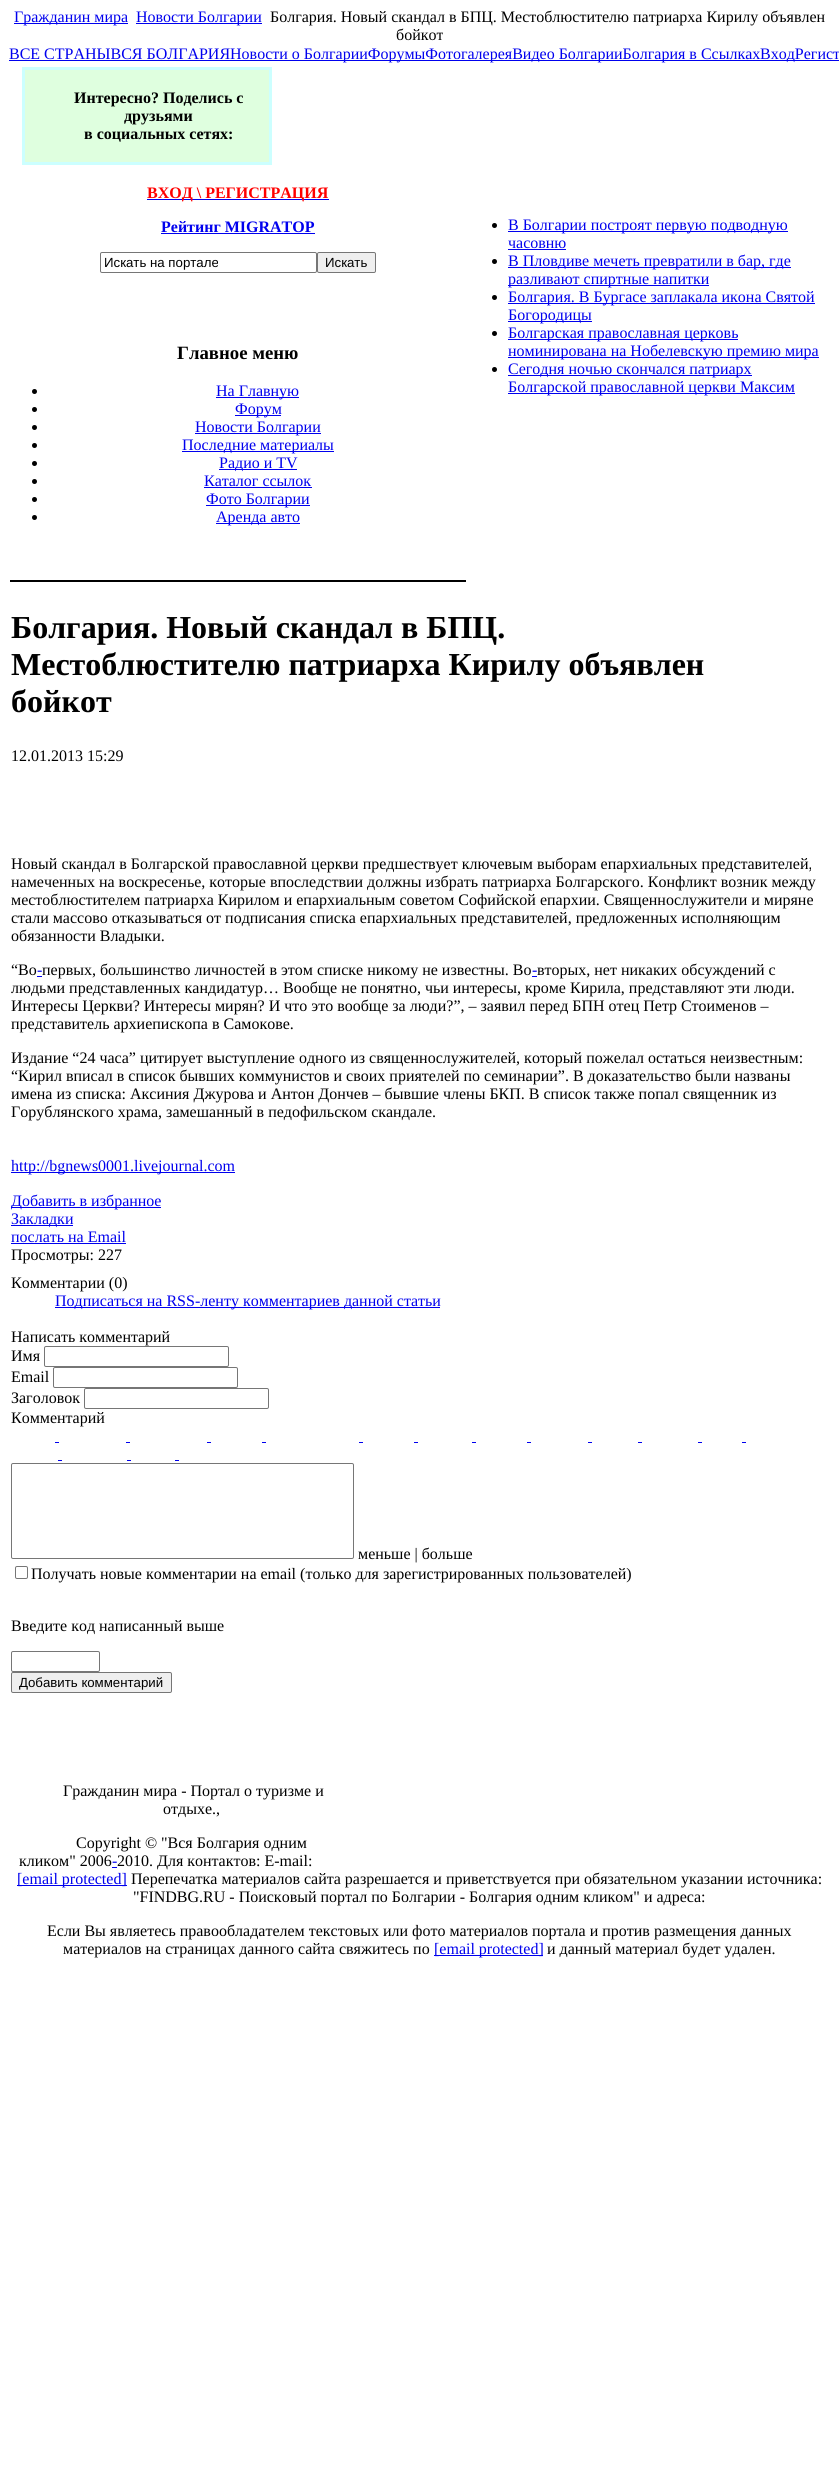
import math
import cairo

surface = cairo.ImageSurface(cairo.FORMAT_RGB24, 839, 2476)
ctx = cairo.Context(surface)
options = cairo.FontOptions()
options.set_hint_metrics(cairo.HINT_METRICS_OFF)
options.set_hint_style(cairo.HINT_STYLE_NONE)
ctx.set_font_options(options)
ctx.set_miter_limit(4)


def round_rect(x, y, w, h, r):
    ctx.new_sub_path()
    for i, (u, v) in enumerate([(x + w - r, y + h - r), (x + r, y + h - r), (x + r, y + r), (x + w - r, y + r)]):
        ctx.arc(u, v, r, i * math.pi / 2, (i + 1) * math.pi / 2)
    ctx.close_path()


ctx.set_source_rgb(1, 1, 1)
ctx.paint()
ctx.set_source_rgb(0, 0, 0.933)
ctx.rectangle(14, 23, 114, 1)
ctx.fill()
ctx.select_font_face("Liberation Serif")
ctx.set_font_size(16)
ctx.move_to(14, 22)
ctx.show_text("Гражданин мира")
ctx.rectangle(136, 23, 126, 1)
ctx.fill()
ctx.move_to(136, 22)
ctx.show_text("Новости Болгарии")
ctx.set_source_rgb(0, 0, 0)
ctx.move_to(270, 22)
ctx.show_text("Болгария. Новый скандал в БПЦ. Местоблюстителю патриарха Кирилу объявлен")
ctx.move_to(396, 40)
ctx.show_text("бойкот")
ctx.set_source_rgb(0, 0, 0.933)
ctx.rectangle(9, 60, 751, 1)
ctx.fill()
ctx.move_to(9, 59)
ctx.show_text("ВСЕ СТРАНЫВСЯ БОЛГАРИЯНовости о БолгарииФорумыФотогалереяВидео БолгарииБолгария в Ссылках")
ctx.rectangle(760, 60, 79, 1)
ctx.fill()
ctx.move_to(760, 59)
ctx.show_text("ВходРегист")
ctx.set_source_rgb(0.875, 1, 0.875)
ctx.rectangle(23.5, 68.5, 247, 95)
ctx.fill_preserve()
ctx.set_source_rgb(0.8, 1, 1)
ctx.set_line_width(3)
ctx.stroke()
ctx.select_font_face("Liberation Serif", cairo.FONT_SLANT_NORMAL, cairo.FONT_WEIGHT_BOLD)
ctx.set_source_rgb(0, 0, 0)
ctx.move_to(74, 103)
ctx.show_text("Интересно? Поделись с")
ctx.move_to(124, 121)
ctx.show_text("друзьями")
ctx.move_to(84, 139)
ctx.show_text("в социальных сетях:")
ctx.set_source_rgb(0, 0, 0.933)
ctx.rectangle(147, 199, 182, 1)
ctx.fill()
ctx.set_source_rgb(1, 0, 0)
ctx.move_to(147, 198)
ctx.show_text("ВХОД \\ РЕГИСТРАЦИЯ")
ctx.set_source_rgb(0, 0, 0.933)
ctx.move_to(161, 232)
ctx.show_text("Рейтинг MIGRATOP")
ctx.rectangle(161, 233, 154, 1)
ctx.fill()
round_rect(100.5, 252.5, 216, 20, 1.5)
ctx.set_source_rgb(0.463, 0.463, 0.463)
ctx.set_line_width(1)
ctx.stroke()
ctx.select_font_face("Liberation Sans")
ctx.set_font_size(13.25)
ctx.set_source_rgb(0, 0, 0)
ctx.move_to(104, 267)
ctx.show_text("Искать на портале")
ctx.set_source_rgb(0.937, 0.937, 0.937)
round_rect(317.5, 252.5, 58, 20, 1.5)
ctx.fill_preserve()
ctx.set_source_rgb(0.463, 0.463, 0.463)
ctx.stroke()
ctx.set_source_rgb(0, 0, 0)
ctx.move_to(325, 267)
ctx.show_text("Искать")
ctx.select_font_face("Liberation Serif", cairo.FONT_SLANT_NORMAL, cairo.FONT_WEIGHT_BOLD)
ctx.set_font_size(18.75)
ctx.move_to(177, 359)
ctx.show_text("Главное меню")
ctx.new_path()
ctx.arc(34.5, 391.5, 2.5, 0, 2 * math.pi)
ctx.fill()
ctx.set_source_rgb(0, 0, 0.933)
ctx.rectangle(216, 397, 83, 1)
ctx.fill()
ctx.select_font_face("Liberation Serif")
ctx.set_font_size(16)
ctx.move_to(216, 396)
ctx.show_text("На Главную")
ctx.set_source_rgb(0, 0, 0)
ctx.new_path()
ctx.arc(34.5, 409.5, 2.5, 0, 2 * math.pi)
ctx.fill()
ctx.set_source_rgb(0, 0, 0.933)
ctx.rectangle(235, 415, 46, 1)
ctx.fill()
ctx.move_to(235, 414)
ctx.show_text("Форум")
ctx.set_source_rgb(0, 0, 0)
ctx.new_path()
ctx.arc(34.5, 427.5, 2.5, 0, 2 * math.pi)
ctx.fill()
ctx.set_source_rgb(0, 0, 0.933)
ctx.rectangle(195, 433, 126, 1)
ctx.fill()
ctx.move_to(195, 432)
ctx.show_text("Новости Болгарии")
ctx.set_source_rgb(0, 0, 0)
ctx.new_path()
ctx.arc(34.5, 445.5, 2.5, 0, 2 * math.pi)
ctx.fill()
ctx.set_source_rgb(0, 0, 0.933)
ctx.rectangle(182, 451, 152, 1)
ctx.fill()
ctx.move_to(182, 450)
ctx.show_text("Последние материалы")
ctx.set_source_rgb(0, 0, 0)
ctx.new_path()
ctx.arc(34.5, 463.5, 2.5, 0, 2 * math.pi)
ctx.fill()
ctx.set_source_rgb(0, 0, 0.933)
ctx.rectangle(219, 469, 78, 1)
ctx.fill()
ctx.move_to(219, 468)
ctx.show_text("Радио и TV")
ctx.set_source_rgb(0, 0, 0)
ctx.new_path()
ctx.arc(34.5, 481.5, 2.5, 0, 2 * math.pi)
ctx.fill()
ctx.set_source_rgb(0, 0, 0.933)
ctx.move_to(204, 486)
ctx.show_text("Каталог ссылок")
ctx.rectangle(204, 487, 108, 1)
ctx.fill()
ctx.set_source_rgb(0, 0, 0)
ctx.arc(34.5, 499.5, 2.5, 0, 2 * math.pi)
ctx.fill()
ctx.set_source_rgb(0, 0, 0.933)
ctx.rectangle(206, 505, 104, 1)
ctx.fill()
ctx.move_to(206, 504)
ctx.show_text("Фото Болгарии")
ctx.set_source_rgb(0, 0, 0)
ctx.new_path()
ctx.arc(34.5, 517.5, 2.5, 0, 2 * math.pi)
ctx.fill()
ctx.set_source_rgb(0, 0, 0.933)
ctx.rectangle(216, 523, 84, 1)
ctx.fill()
ctx.move_to(216, 522)
ctx.show_text("Аренда авто")
ctx.set_source_rgb(0, 0, 0)
ctx.rectangle(10, 580, 456, 2)
ctx.fill()
ctx.arc(494.5, 225.5, 2.5, 0, 2 * math.pi)
ctx.fill()
ctx.set_source_rgb(0, 0, 0.933)
ctx.rectangle(508, 231, 280, 1)
ctx.fill()
ctx.move_to(508, 230)
ctx.show_text("В Болгарии построят первую подводную")
ctx.move_to(508, 248)
ctx.show_text("часовню")
ctx.rectangle(508, 249, 58, 1)
ctx.fill()
ctx.set_source_rgb(0, 0, 0)
ctx.arc(494.5, 261.5, 2.5, 0, 2 * math.pi)
ctx.fill()
ctx.set_source_rgb(0, 0, 0.933)
ctx.rectangle(508, 267, 283, 1)
ctx.fill()
ctx.move_to(508, 266)
ctx.show_text("В Пловдиве мечеть превратили в бар, где")
ctx.rectangle(508, 285, 201, 1)
ctx.fill()
ctx.move_to(508, 284)
ctx.show_text("разливают спиртные напитки")
ctx.set_source_rgb(0, 0, 0)
ctx.new_path()
ctx.arc(494.5, 297.5, 2.5, 0, 2 * math.pi)
ctx.fill()
ctx.set_source_rgb(0, 0, 0.933)
ctx.rectangle(508, 303, 307, 1)
ctx.fill()
ctx.move_to(508, 302)
ctx.show_text("Болгария. В Бургасе заплакала икона Святой")
ctx.rectangle(508, 321, 84, 1)
ctx.fill()
ctx.move_to(508, 320)
ctx.show_text("Богородицы")
ctx.set_source_rgb(0, 0, 0)
ctx.new_path()
ctx.arc(494.5, 333.5, 2.5, 0, 2 * math.pi)
ctx.fill()
ctx.set_source_rgb(0, 0, 0.933)
ctx.rectangle(508, 339, 230, 1)
ctx.fill()
ctx.move_to(508, 338)
ctx.show_text("Болгарская православная церковь")
ctx.rectangle(508, 357, 311, 1)
ctx.fill()
ctx.move_to(508, 356)
ctx.show_text("номинирована на Нобелевскую премию мира")
ctx.set_source_rgb(0, 0, 0)
ctx.new_path()
ctx.arc(494.5, 369.5, 2.5, 0, 2 * math.pi)
ctx.fill()
ctx.set_source_rgb(0, 0, 0.933)
ctx.rectangle(508, 375, 244, 1)
ctx.fill()
ctx.move_to(508, 374)
ctx.show_text("Сегодня ночью скончался патриарх")
ctx.rectangle(508, 393, 287, 1)
ctx.fill()
ctx.move_to(508, 392)
ctx.show_text("Болгарской православной церкви Максим")
ctx.select_font_face("Liberation Serif", cairo.FONT_SLANT_NORMAL, cairo.FONT_WEIGHT_BOLD)
ctx.set_font_size(32)
ctx.set_source_rgb(0, 0, 0)
ctx.move_to(11, 638)
ctx.show_text("Болгария. Новый скандал в БПЦ.")
ctx.move_to(11, 675)
ctx.show_text("Местоблюстителю патриарха Кирилу объявлен")
ctx.move_to(11, 712)
ctx.show_text("бойкот")
ctx.select_font_face("Liberation Serif")
ctx.set_font_size(16)
ctx.move_to(11, 761)
ctx.show_text("12.01.2013 15:29")
ctx.move_to(11, 869)
ctx.show_text("Новый скандал в Болгарской православной церкви предшествует ключевым выборам епархиальных представителей,")
ctx.move_to(11, 887)
ctx.show_text("намеченных на воскресенье, которые впоследствии должны избрать патриарха Болгарского. Конфликт возник между")
ctx.move_to(11, 905)
ctx.show_text("местоблюстителем патриарха Кирилом и епархиальным советом Софийской епархии. Священнослужители и миряне")
ctx.move_to(11, 923)
ctx.show_text("стали массово отказываться от подписания списка епархиальных представителей, предложенных исполняющим")
ctx.move_to(11, 941)
ctx.show_text("обязанности Владыки.")
ctx.move_to(11, 975)
ctx.show_text("“Во")
ctx.set_source_rgb(0, 0, 0.933)
ctx.move_to(37, 975)
ctx.show_text("-")
ctx.rectangle(37, 976, 5, 1)
ctx.fill()
ctx.set_source_rgb(0, 0, 0)
ctx.move_to(42, 975)
ctx.show_text("первых, большинство личностей в этом списке никому не известны. Во")
ctx.set_source_rgb(0, 0, 0.933)
ctx.move_to(532, 975)
ctx.show_text("-")
ctx.rectangle(532, 976, 5, 1)
ctx.fill()
ctx.set_source_rgb(0, 0, 0)
ctx.move_to(537, 975)
ctx.show_text("вторых, нет никаких обсуждений с")
ctx.move_to(11, 993)
ctx.show_text("людьми представленных кандидатур… Вообще не понятно, чьи интересы, кроме Кирила, представляют эти люди.")
ctx.move_to(11, 1011)
ctx.show_text("Интересы Церкви? Интересы мирян? И что это вообще за люди?”, – заявил перед БПН отец Петр Стоименов –")
ctx.move_to(11, 1029)
ctx.show_text("представитель архиепископа в Самокове.")
ctx.move_to(11, 1063)
ctx.show_text("Издание “24 часа” цитирует выступление одного из священнослужителей, который пожелал остаться неизвестным:")
ctx.move_to(11, 1081)
ctx.show_text("“Кирил вписал в список бывших коммунистов и своих приятелей по семинарии”. В доказательство были названы")
ctx.move_to(11, 1099)
ctx.show_text("имена из списка: Аксиния Джурова и Антон Дончев – бывшие члены БКП. В список также попал священник из")
ctx.move_to(11, 1117)
ctx.show_text("Горублянского храма, замешанный в педофильском скандале.")
ctx.set_source_rgb(0, 0, 0.933)
ctx.rectangle(11, 1172, 224, 1)
ctx.fill()
ctx.move_to(11, 1171)
ctx.show_text("http://bgnews0001.livejournal.com")
ctx.rectangle(11, 1207, 150, 1)
ctx.fill()
ctx.move_to(11, 1206)
ctx.show_text("Добавить в избранное")
ctx.rectangle(11, 1225, 62, 1)
ctx.fill()
ctx.move_to(11, 1224)
ctx.show_text("Закладки")
ctx.move_to(11, 1242)
ctx.show_text("послать на Email")
ctx.rectangle(11, 1243, 115, 1)
ctx.fill()
ctx.set_source_rgb(0, 0, 0)
ctx.move_to(11, 1260)
ctx.show_text("Просмотры: 227")
ctx.move_to(11, 1288)
ctx.show_text("Комментарии (0)")
ctx.set_source_rgb(0, 0, 0.933)
ctx.rectangle(55, 1307, 385, 1)
ctx.fill()
ctx.move_to(55, 1306)
ctx.show_text("Подписаться на RSS-ленту комментариев данной статьи")
ctx.set_source_rgb(0, 0, 0)
ctx.move_to(11, 1342)
ctx.show_text("Написать комментарий")
ctx.move_to(11, 1361)
ctx.show_text("Имя")
round_rect(44.5, 1346.5, 184, 20, 1.5)
ctx.set_source_rgb(0.463, 0.463, 0.463)
ctx.stroke()
ctx.set_source_rgb(0, 0, 0)
ctx.move_to(11, 1382)
ctx.show_text("Email")
round_rect(53.5, 1367.5, 184, 20, 1.5)
ctx.set_source_rgb(0.463, 0.463, 0.463)
ctx.stroke()
ctx.set_source_rgb(0, 0, 0)
ctx.move_to(11, 1403)
ctx.show_text("Заголовок")
round_rect(84.5, 1388.5, 184, 20, 1.5)
ctx.set_source_rgb(0.463, 0.463, 0.463)
ctx.stroke()
ctx.set_source_rgb(0, 0, 0)
ctx.move_to(11, 1423)
ctx.show_text("Комментарий")
ctx.set_source_rgb(0, 0, 0.933)
ctx.rectangle(55, 1442, 4, 1)
ctx.fill()
ctx.rectangle(126, 1442, 4, 1)
ctx.fill()
ctx.rectangle(207, 1442, 4, 1)
ctx.fill()
ctx.rectangle(262, 1442, 4, 1)
ctx.fill()
ctx.rectangle(359, 1442, 4, 1)
ctx.fill()
ctx.rectangle(414, 1442, 4, 1)
ctx.fill()
ctx.rectangle(472, 1442, 4, 1)
ctx.fill()
ctx.rectangle(527, 1442, 4, 1)
ctx.fill()
ctx.rectangle(588, 1442, 4, 1)
ctx.fill()
ctx.rectangle(638, 1442, 4, 1)
ctx.fill()
ctx.rectangle(698, 1442, 4, 1)
ctx.fill()
ctx.rectangle(742, 1442, 4, 1)
ctx.fill()
ctx.rectangle(58, 1460, 4, 1)
ctx.fill()
ctx.rectangle(127, 1460, 4, 1)
ctx.fill()
ctx.rectangle(175, 1460, 4, 1)
ctx.fill()
round_rect(11.5, 1463.5, 342, 95, 1.5)
ctx.set_source_rgb(0.463, 0.463, 0.463)
ctx.stroke()
ctx.set_source_rgb(0, 0, 0)
ctx.move_to(358, 1559)
ctx.show_text("меньше | больше")
round_rect(15.5, 1566.5, 12, 12, 1.5)
ctx.set_source_rgb(0.463, 0.463, 0.463)
ctx.stroke()
ctx.set_source_rgb(0, 0, 0)
ctx.move_to(31, 1579)
ctx.show_text("Получать новые комментарии на email (только для зарегистрированных пользователей)")
ctx.move_to(11, 1631)
ctx.show_text("Введите код написанный выше")
round_rect(11.5, 1651.5, 88, 20, 1.5)
ctx.set_source_rgb(0.463, 0.463, 0.463)
ctx.stroke()
ctx.set_source_rgb(0.937, 0.937, 0.937)
round_rect(11.5, 1672.5, 160, 20, 1.5)
ctx.fill_preserve()
ctx.set_source_rgb(0.463, 0.463, 0.463)
ctx.stroke()
ctx.select_font_face("Liberation Sans")
ctx.set_font_size(13.25)
ctx.set_source_rgb(0, 0, 0)
ctx.move_to(19, 1687)
ctx.show_text("Добавить комментарий")
ctx.select_font_face("Liberation Serif")
ctx.set_font_size(16)
ctx.move_to(63, 1796)
ctx.show_text("Гражданин мира - Портал о туризме и")
ctx.move_to(163, 1814)
ctx.show_text("отдыхе.,")
ctx.move_to(76, 1848)
ctx.show_text("Copyright © \"Вся Болгария одним")
ctx.move_to(19, 1866)
ctx.show_text("кликом\" 2006")
ctx.set_source_rgb(0, 0, 0.933)
ctx.move_to(112, 1866)
ctx.show_text("-")
ctx.rectangle(112, 1867, 5, 1)
ctx.fill()
ctx.set_source_rgb(0, 0, 0)
ctx.move_to(117, 1866)
ctx.show_text("2010. Для контактов: E-mail:")
ctx.set_source_rgb(0, 0, 0.933)
ctx.rectangle(17, 1885, 110, 1)
ctx.fill()
ctx.move_to(17, 1884)
ctx.show_text("[email protected]")
ctx.set_source_rgb(0, 0, 0)
ctx.move_to(131, 1884)
ctx.show_text("Перепечатка материалов сайта разрешается и приветствуется при обязательном указании источника:")
ctx.move_to(133, 1902)
ctx.show_text("\"FINDBG.RU - Поисковый портал по Болгарии - Болгария одним кликом\" и адреса:")
ctx.move_to(47, 1936)
ctx.show_text("Если Вы являетесь правообладателем текстовых или фото материалов портала и против размещения данных")
ctx.move_to(63, 1954)
ctx.show_text("материалов на страницах данного сайта свяжитесь по")
ctx.set_source_rgb(0, 0, 0.933)
ctx.rectangle(434, 1955, 109, 1)
ctx.fill()
ctx.move_to(434, 1954)
ctx.show_text("[email protected]")
ctx.set_source_rgb(0, 0, 0)
ctx.move_to(547, 1954)
ctx.show_text("и данный материал будет удален.")
surface.write_to_png("page.png")
